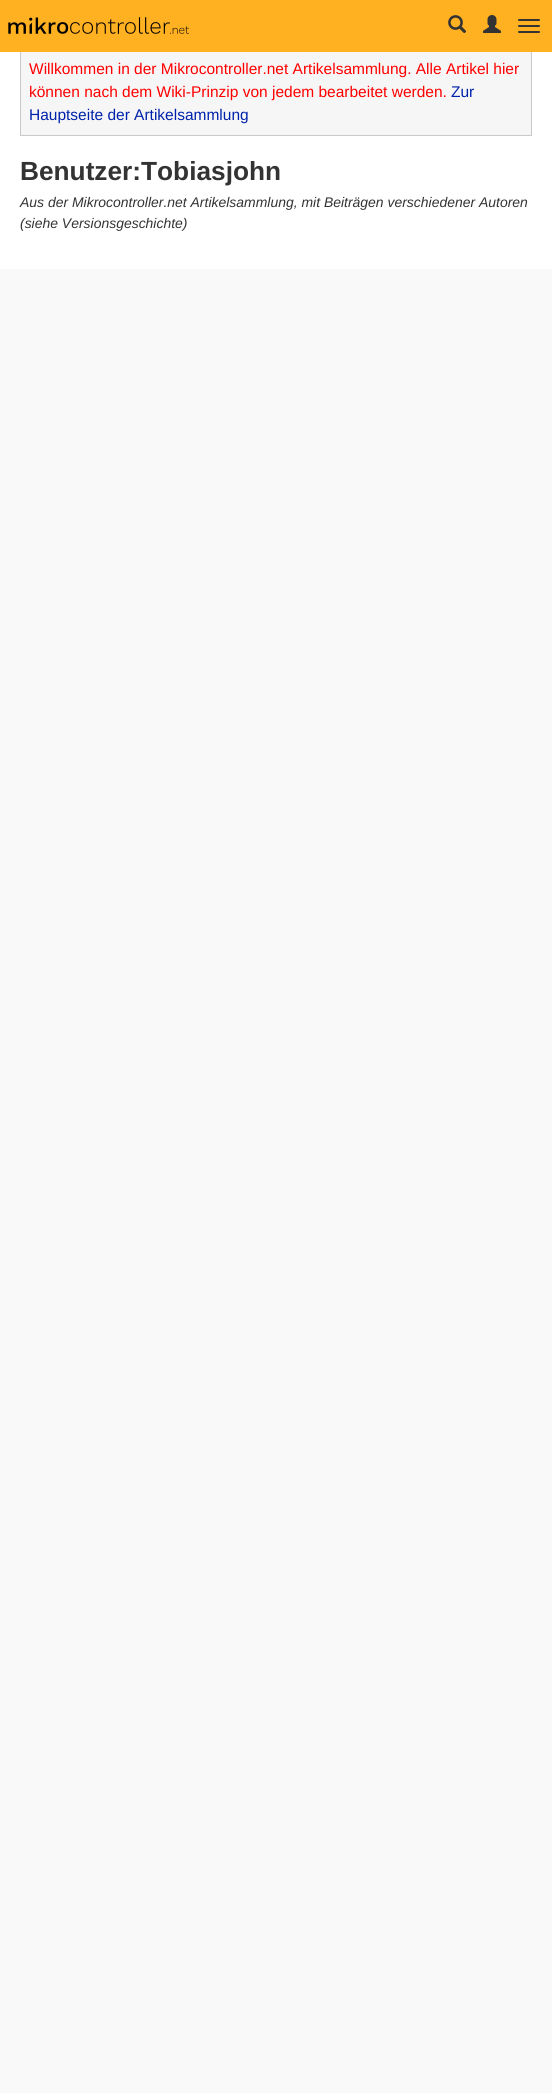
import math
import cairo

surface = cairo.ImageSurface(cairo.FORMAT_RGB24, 552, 2093)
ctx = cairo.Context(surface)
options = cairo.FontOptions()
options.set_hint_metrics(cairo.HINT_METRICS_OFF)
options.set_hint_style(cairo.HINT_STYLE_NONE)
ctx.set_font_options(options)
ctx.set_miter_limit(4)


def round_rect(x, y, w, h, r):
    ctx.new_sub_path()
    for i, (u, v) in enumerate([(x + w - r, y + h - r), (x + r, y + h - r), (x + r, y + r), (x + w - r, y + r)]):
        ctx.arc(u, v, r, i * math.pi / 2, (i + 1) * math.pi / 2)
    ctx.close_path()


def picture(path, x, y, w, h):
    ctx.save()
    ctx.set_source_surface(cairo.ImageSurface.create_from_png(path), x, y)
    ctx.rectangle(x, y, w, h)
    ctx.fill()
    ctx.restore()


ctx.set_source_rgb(0.973, 0.973, 0.973)
ctx.paint()
ctx.set_source_rgb(1, 1, 1)
ctx.rectangle(0, 52, 552, 217)
ctx.fill()
ctx.set_source_rgb(0.961, 0.961, 0.961)
ctx.rectangle(21, 52, 510, 83)
ctx.fill()
ctx.rectangle(20.5, 48.5, 511, 87)
ctx.set_source_rgb(0.792, 0.792, 0.792)
ctx.set_line_width(1)
ctx.stroke()
ctx.set_source_rgb(1, 0.694, 0.133)
ctx.rectangle(0, 0, 552, 52)
ctx.fill()
picture("img1.png", 8, 17, 181, 17)
picture("img2.png", 448, 15, 19, 19)
picture("img3.png", 483, 15, 18, 18)
ctx.set_source_rgb(0.2, 0.2, 0.2)
round_rect(518, 19, 22, 2, 1)
ctx.fill()
round_rect(518, 25, 22, 2, 1)
ctx.fill()
round_rect(518, 31, 22, 2, 1)
ctx.fill()
ctx.select_font_face("Liberation Sans")
ctx.set_font_size(15.5)
ctx.set_source_rgb(1, 0, 0)
ctx.move_to(29, 74)
ctx.show_text("Willkommen in der Mikrocontroller.net Artikelsammlung. Alle Artikel hier")
ctx.move_to(29, 97)
ctx.show_text("können nach dem Wiki-Prinzip von jedem bearbeitet werden.")
ctx.set_source_rgb(0, 0.133, 0.667)
ctx.move_to(451, 97)
ctx.show_text("Zur")
ctx.move_to(29, 120)
ctx.show_text("Hauptseite der Artikelsammlung")
ctx.select_font_face("Liberation Sans", cairo.FONT_SLANT_NORMAL, cairo.FONT_WEIGHT_BOLD)
ctx.set_font_size(26.25)
ctx.set_source_rgb(0.2, 0.2, 0.2)
ctx.move_to(20, 180)
ctx.show_text("Benutzer:Tobiasjohn")
ctx.select_font_face("Liberation Sans", cairo.FONT_SLANT_ITALIC)
ctx.set_font_size(13.95)
ctx.move_to(20, 207)
ctx.show_text("Aus der Mikrocontroller.net Artikelsammlung, mit Beiträgen verschiedener Autoren")
ctx.move_to(20, 228)
ctx.show_text("(siehe Versionsgeschichte)")
surface.write_to_png("page.png")
